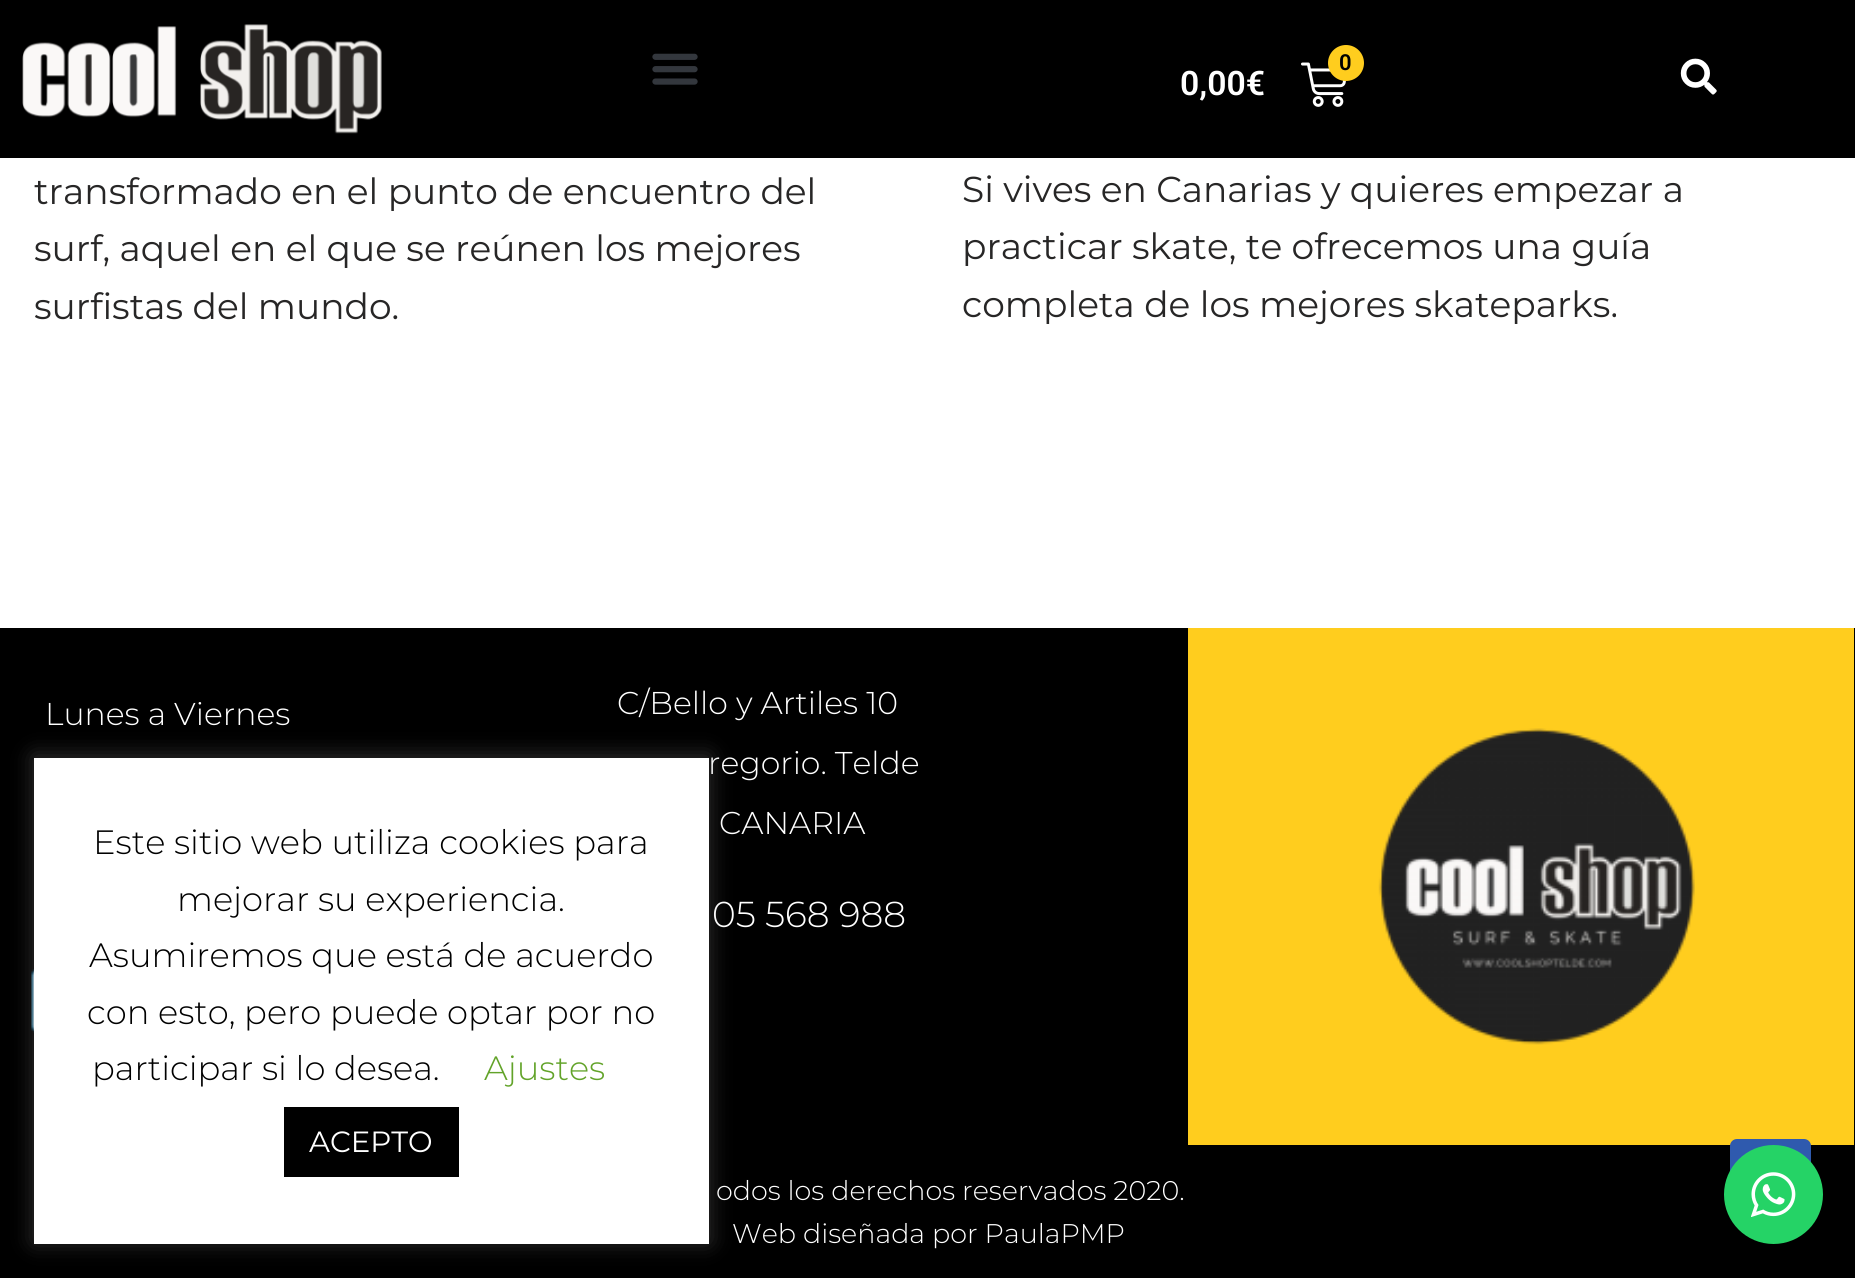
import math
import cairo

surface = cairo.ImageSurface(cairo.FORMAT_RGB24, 1855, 1278)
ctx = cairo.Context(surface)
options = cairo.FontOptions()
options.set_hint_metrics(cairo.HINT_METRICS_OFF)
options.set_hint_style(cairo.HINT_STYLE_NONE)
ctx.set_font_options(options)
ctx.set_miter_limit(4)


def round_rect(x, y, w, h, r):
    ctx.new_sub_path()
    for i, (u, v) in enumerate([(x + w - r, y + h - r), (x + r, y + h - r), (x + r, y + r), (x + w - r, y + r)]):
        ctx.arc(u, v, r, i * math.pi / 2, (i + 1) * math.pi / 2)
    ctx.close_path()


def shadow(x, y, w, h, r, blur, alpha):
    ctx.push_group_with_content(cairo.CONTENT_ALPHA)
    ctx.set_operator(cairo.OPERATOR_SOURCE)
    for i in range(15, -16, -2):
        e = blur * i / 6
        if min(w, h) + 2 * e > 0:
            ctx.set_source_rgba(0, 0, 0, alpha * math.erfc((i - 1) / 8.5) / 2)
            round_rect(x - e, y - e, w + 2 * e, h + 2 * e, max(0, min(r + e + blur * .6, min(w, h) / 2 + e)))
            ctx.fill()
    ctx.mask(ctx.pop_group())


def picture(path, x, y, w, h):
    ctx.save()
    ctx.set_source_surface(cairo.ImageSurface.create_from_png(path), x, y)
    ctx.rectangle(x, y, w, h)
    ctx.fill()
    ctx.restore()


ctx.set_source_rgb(1, 1, 1)
ctx.paint()
ctx.set_source_rgb(0, 0, 0)
ctx.rectangle(0, 0, 1855, 158)
ctx.fill()
picture("img1.png", 22, 24, 360, 110)
picture("img2.png", 652, 53, 46, 32)
picture("img3.png", 1301, 62, 45, 45)
ctx.set_source_rgb(1, 0.804, 0.118)
ctx.arc(1346, 63, 18, 0, 2 * math.pi)
ctx.fill()
ctx.select_font_face("Roboto SemiBold")
ctx.set_font_size(22)
ctx.set_source_rgb(0, 0, 0)
ctx.move_to(1339, 70)
ctx.show_text("0")
ctx.set_font_size(33.75)
ctx.set_source_rgb(1, 1, 1)
ctx.move_to(1180, 95)
ctx.show_text("0,00€")
picture("img4.png", 1680, 58, 37, 37)
ctx.select_font_face("Montserrat")
ctx.set_font_size(36)
ctx.set_source_rgb(0.153, 0.149, 0.149)
ctx.move_to(34, 204)
ctx.show_text("transformado en el punto de encuentro del")
ctx.move_to(34, 261)
ctx.show_text("surf, aquel en el que se reúnen los mejores")
ctx.move_to(34, 319)
ctx.show_text("surfistas del mundo.")
ctx.move_to(962, 202)
ctx.show_text("Si vives en Canarias y quieres empezar a")
ctx.move_to(962, 259)
ctx.show_text("practicar skate, te ofrecemos una guía")
ctx.move_to(962, 317)
ctx.show_text("completa de los mejores skateparks.")
ctx.set_source_rgb(0, 0, 0)
ctx.rectangle(0, 628, 1855, 650)
ctx.fill()
ctx.select_font_face("Montserrat Light")
ctx.set_font_size(31.5)
ctx.set_source_rgb(1, 1, 1)
ctx.move_to(45, 725)
ctx.show_text("Lunes a Viernes")
ctx.move_to(617, 714)
ctx.show_text("C/Bello y Artiles 10")
ctx.move_to(708, 774)
ctx.show_text("regorio. Telde")
ctx.move_to(719, 834)
ctx.show_text("CANARIA")
ctx.set_font_size(36)
ctx.move_to(712, 927)
ctx.show_text("05 568 988")
picture("img5.png", 31, 969, 3, 64)
ctx.set_source_rgb(1, 0.804, 0.118)
ctx.rectangle(1188, 628, 666, 517)
ctx.fill()
picture("img6.png", 1378, 728, 317, 317)
ctx.set_font_size(27)
ctx.set_source_rgb(1, 1, 1)
ctx.move_to(716, 1200)
ctx.show_text("odos los derechos reservados 2020.")
ctx.move_to(732, 1243)
ctx.show_text("Web diseñada por PaulaPMP")
ctx.set_source_rgb(0.184, 0.353, 0.682)
round_rect(1730, 1139, 81, 72, 7)
ctx.fill()
ctx.set_source_rgb(0.675, 0.671, 0.671)
shadow(34, 756, 675, 486, 0, 11, 0.3)
ctx.set_source_rgb(1, 1, 1)
ctx.rectangle(34, 758, 675, 486)
ctx.fill()
ctx.set_font_size(33.75)
ctx.set_source_rgb(0, 0, 0)
ctx.move_to(93, 854)
ctx.show_text("Este sitio web utiliza cookies para")
ctx.move_to(177, 911)
ctx.show_text("mejorar su experiencia.")
ctx.move_to(89, 967)
ctx.show_text("Asumiremos que está de acuerdo")
ctx.move_to(87, 1024)
ctx.show_text("con esto, pero puede optar por no")
ctx.move_to(92, 1080)
ctx.show_text("participar si lo desea.")
ctx.set_source_rgb(0.384, 0.639, 0.161)
ctx.move_to(484, 1080)
ctx.show_text("Ajustes")
ctx.set_source_rgb(0, 0, 0)
ctx.rectangle(284, 1107, 175, 70)
ctx.fill()
ctx.select_font_face("Montserrat")
ctx.set_font_size(29.25)
ctx.set_source_rgb(1, 1, 1)
ctx.move_to(309, 1152)
ctx.show_text("ACEPTO")
ctx.set_source_rgb(0.145, 0.827, 0.4)
ctx.new_path()
ctx.arc(1773.5, 1194.5, 49.5, 0, 2 * math.pi)
ctx.fill()
picture("img7.png", 1751, 1172, 45, 45)
surface.write_to_png("page.png")
